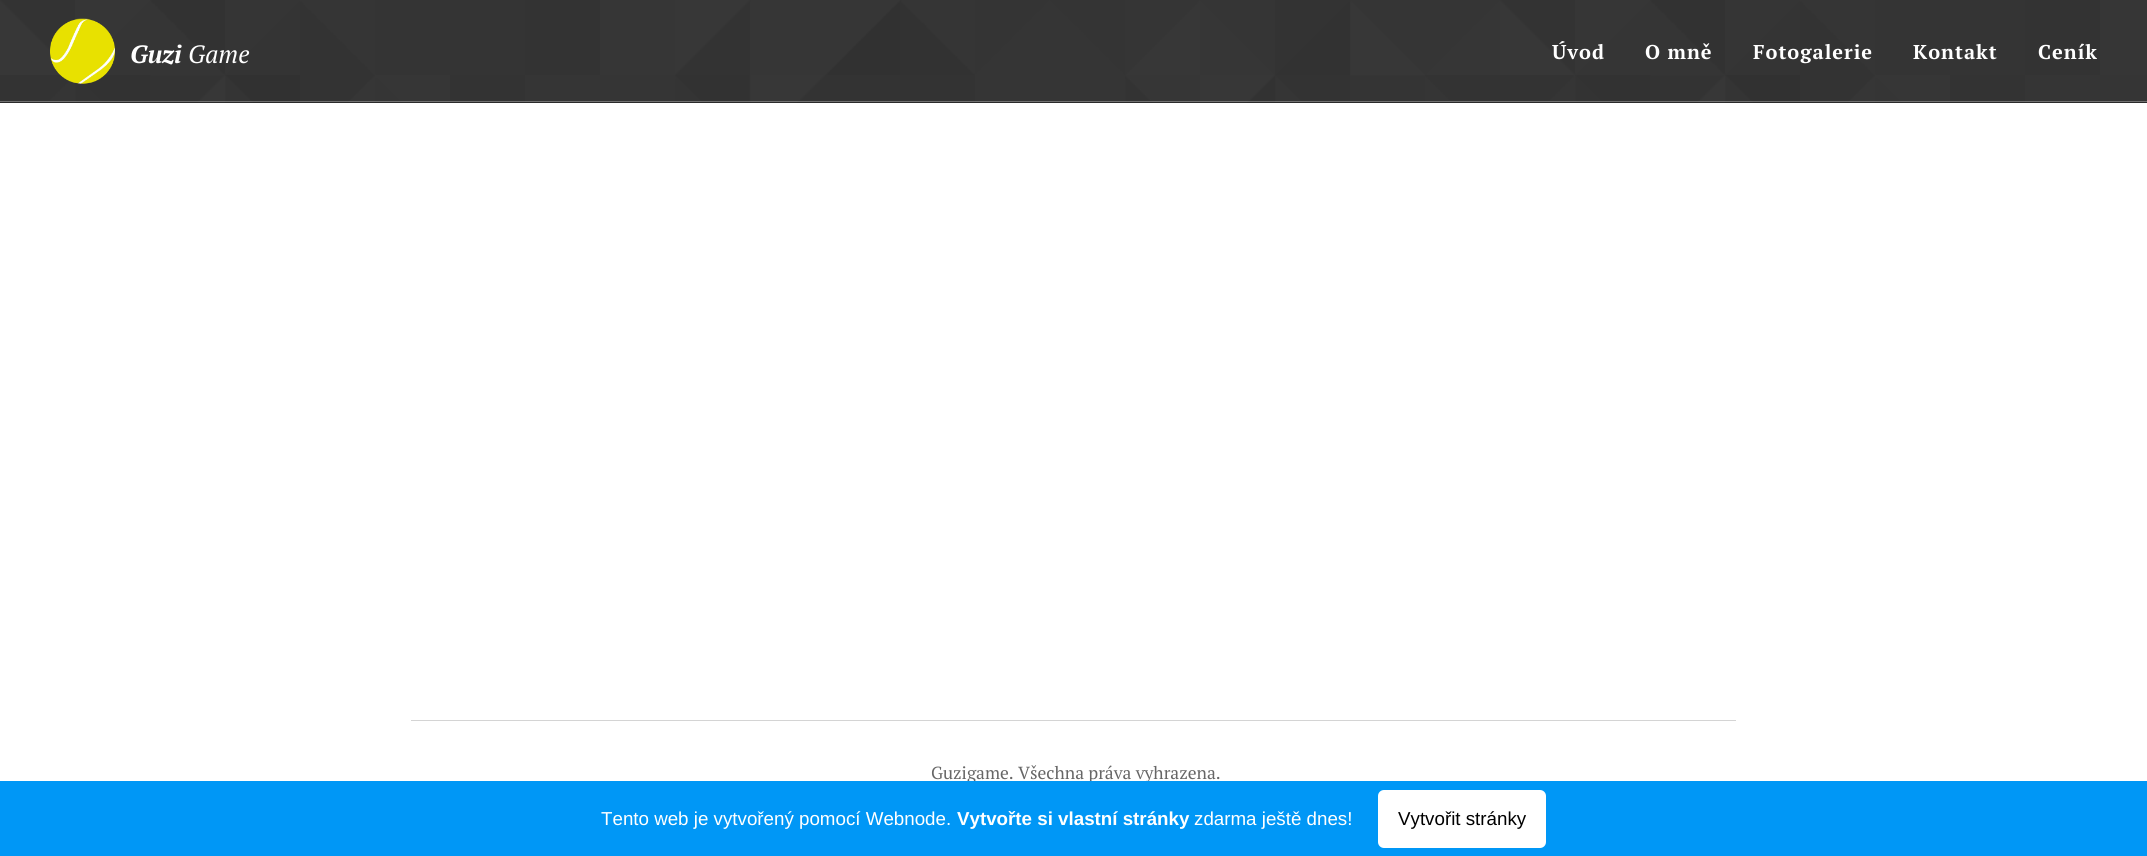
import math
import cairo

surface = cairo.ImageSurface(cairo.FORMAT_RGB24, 2147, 856)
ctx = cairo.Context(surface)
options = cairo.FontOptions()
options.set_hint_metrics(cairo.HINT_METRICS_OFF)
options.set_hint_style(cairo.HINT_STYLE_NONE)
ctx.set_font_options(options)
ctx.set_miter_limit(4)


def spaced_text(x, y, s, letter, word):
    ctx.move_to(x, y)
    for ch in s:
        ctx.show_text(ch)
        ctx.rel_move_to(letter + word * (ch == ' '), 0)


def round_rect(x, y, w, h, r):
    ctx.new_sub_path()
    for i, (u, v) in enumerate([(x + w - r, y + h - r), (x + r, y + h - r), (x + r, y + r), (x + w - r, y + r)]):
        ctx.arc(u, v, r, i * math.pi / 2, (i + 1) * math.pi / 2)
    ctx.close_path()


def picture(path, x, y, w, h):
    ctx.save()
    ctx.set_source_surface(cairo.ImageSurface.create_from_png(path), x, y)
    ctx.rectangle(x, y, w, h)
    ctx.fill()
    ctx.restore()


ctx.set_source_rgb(1, 1, 1)
ctx.paint()
ctx.set_source_rgb(0.153, 0.153, 0.153)
ctx.rectangle(0, 102, 2147, 1)
ctx.fill()
picture("img1.png", 0, 0, 2147, 103)
picture("img2.png", 50, 18, 65, 66)
ctx.select_font_face("PT Serif", cairo.FONT_SLANT_ITALIC, cairo.FONT_WEIGHT_BOLD)
ctx.set_font_size(25)
ctx.set_source_rgb(1, 1, 1)
ctx.move_to(130, 63)
ctx.show_text("Guzi")
ctx.select_font_face("PT Serif", cairo.FONT_SLANT_ITALIC)
ctx.move_to(188, 63)
ctx.show_text("Game")
ctx.select_font_face("PT Serif", cairo.FONT_SLANT_NORMAL, cairo.FONT_WEIGHT_BOLD)
ctx.set_font_size(20)
spaced_text(1552, 59, "Úvod", 1, 0)
spaced_text(1645, 59, "O mně", 1, 0)
spaced_text(1753, 59, "Fotogalerie", 1, 0)
spaced_text(1913, 59, "Kontakt", 1, 0)
spaced_text(2038, 59, "Ceník", 1, 0)
ctx.set_source_rgba(1, 1, 1, 0.3)
ctx.rectangle(0, 101, 2147, 1)
ctx.fill()
ctx.set_source_rgb(0.831, 0.831, 0.831)
ctx.rectangle(411, 720, 1325, 1)
ctx.fill()
ctx.select_font_face("PT Serif")
ctx.set_font_size(17.5)
ctx.set_source_rgb(0.4, 0.4, 0.4)
ctx.move_to(931, 779)
ctx.show_text("Guzigame. Všechna práva vyhrazena.")
ctx.set_source_rgb(0, 0.592, 0.961)
ctx.rectangle(0, 781, 2147, 75)
ctx.fill()
ctx.select_font_face("Liberation Sans")
ctx.set_font_size(18.75)
ctx.set_source_rgb(1, 1, 1)
ctx.move_to(601, 825)
ctx.show_text("Tento web je vytvořený pomocí Webnode.")
ctx.select_font_face("Liberation Sans", cairo.FONT_SLANT_NORMAL, cairo.FONT_WEIGHT_BOLD)
ctx.move_to(957, 825)
ctx.show_text("Vytvořte si vlastní stránky")
ctx.select_font_face("Liberation Sans")
ctx.move_to(1194, 825)
ctx.show_text("zdarma ještě dnes!")
round_rect(1378, 790, 168, 58, 6)
ctx.fill()
ctx.set_source_rgb(0, 0, 0)
ctx.move_to(1398, 825)
ctx.show_text("Vytvořit stránky")
surface.write_to_png("page.png")
